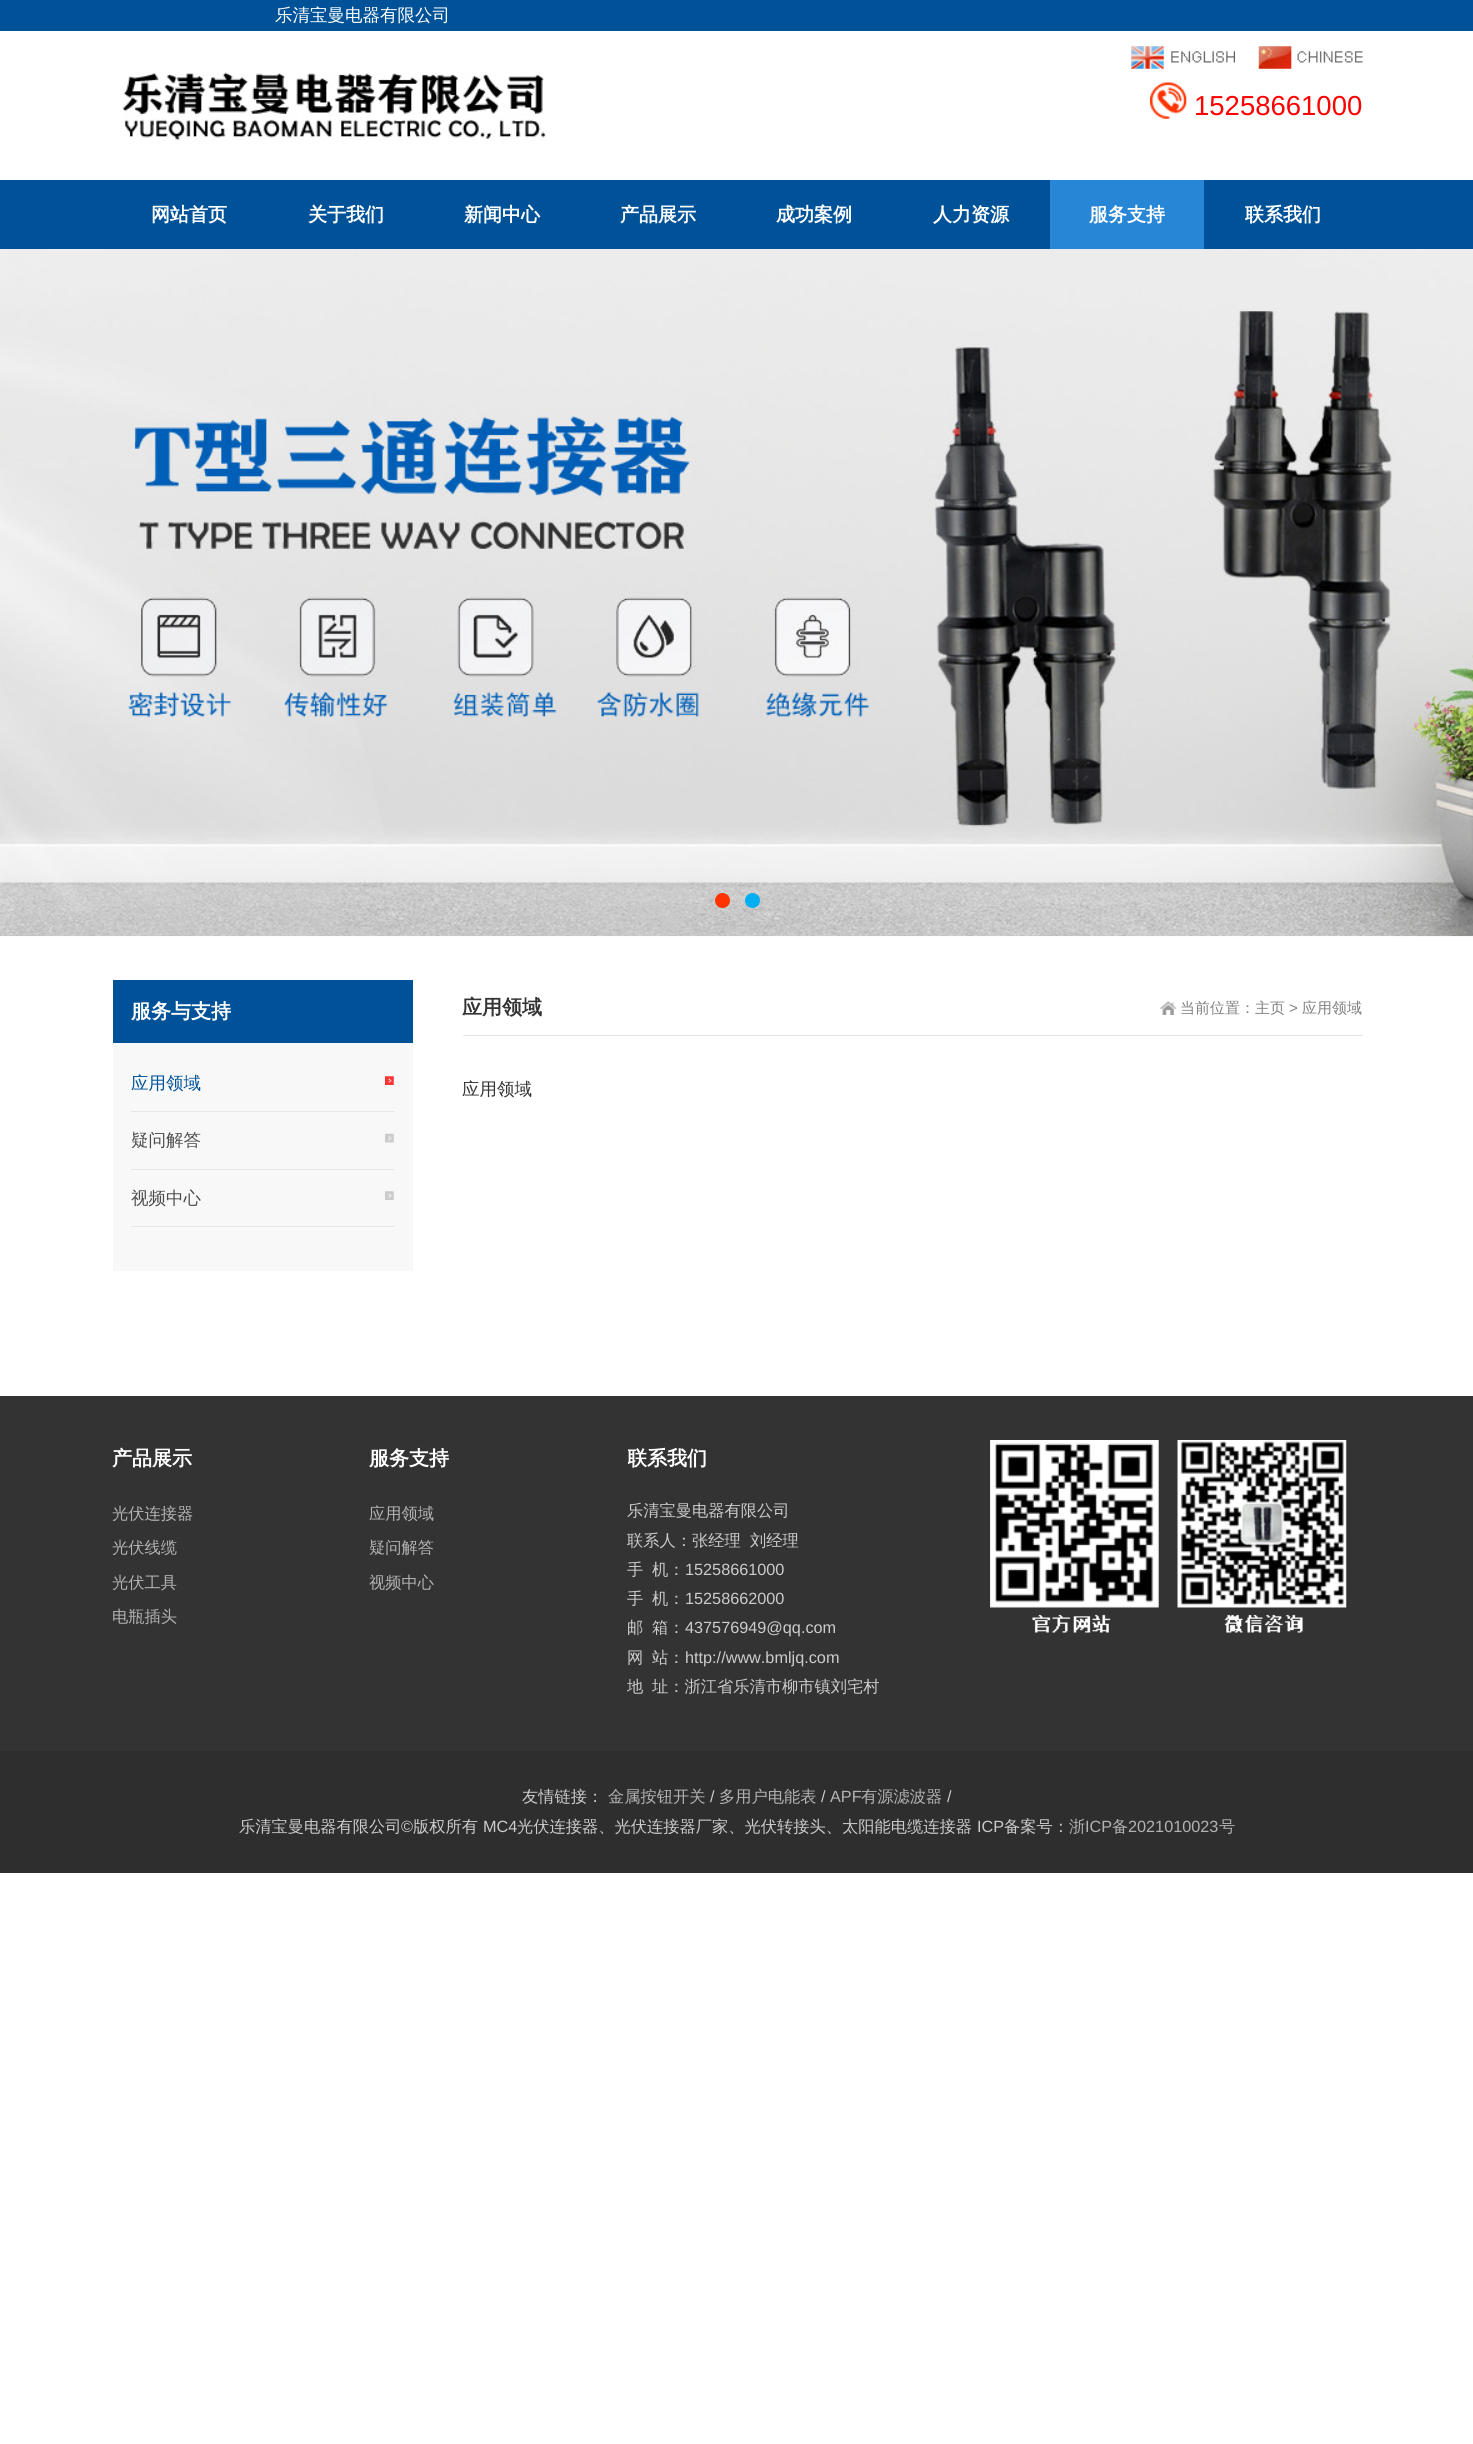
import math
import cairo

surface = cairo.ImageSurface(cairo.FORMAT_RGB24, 1473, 2444)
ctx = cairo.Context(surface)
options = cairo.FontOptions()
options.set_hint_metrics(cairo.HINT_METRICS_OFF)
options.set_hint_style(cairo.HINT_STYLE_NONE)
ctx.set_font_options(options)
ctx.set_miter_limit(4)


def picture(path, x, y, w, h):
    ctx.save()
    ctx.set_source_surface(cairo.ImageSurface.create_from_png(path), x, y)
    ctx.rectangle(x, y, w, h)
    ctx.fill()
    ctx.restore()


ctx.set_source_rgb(1, 1, 1)
ctx.paint()
ctx.set_source_rgb(0, 0.322, 0.596)
ctx.rectangle(0, 0, 1473, 31)
ctx.fill()
ctx.select_font_face("WenQuanYi Zen Hei Medium")
ctx.set_font_size(17.5)
ctx.set_source_rgb(1, 1, 1)
ctx.move_to(275, 21)
ctx.show_text("乐清宝曼电器有限公司")
picture("img1.png", 122, 72, 424, 69)
picture("img2.png", 1131, 46, 104, 23)
picture("img3.png", 1258, 46, 105, 23)
picture("img4.png", 1150, 82, 37, 37)
ctx.select_font_face("Liberation Sans")
ctx.set_font_size(27.5)
ctx.set_source_rgb(1, 0, 0)
ctx.move_to(1194, 115)
ctx.show_text("15258661000")
ctx.set_source_rgb(0, 0.322, 0.596)
ctx.rectangle(0, 180, 1473, 69)
ctx.fill()
ctx.select_font_face("WenQuanYi Zen Hei", cairo.FONT_SLANT_NORMAL, cairo.FONT_WEIGHT_BOLD)
ctx.set_font_size(19)
ctx.set_source_rgb(1, 1, 1)
ctx.move_to(151, 221)
ctx.show_text("网站首页")
ctx.move_to(308, 221)
ctx.show_text("关于我们")
ctx.move_to(464, 221)
ctx.show_text("新闻中心")
ctx.move_to(620, 221)
ctx.show_text("产品展示")
ctx.move_to(776, 221)
ctx.show_text("成功案例")
ctx.move_to(933, 221)
ctx.show_text("人力资源")
ctx.set_source_rgb(0.153, 0.525, 0.839)
ctx.rectangle(1050, 180, 154, 69)
ctx.fill()
ctx.set_source_rgb(1, 1, 1)
ctx.move_to(1089, 221)
ctx.show_text("服务支持")
ctx.move_to(1245, 221)
ctx.show_text("联系我们")
picture("img5.png", 0, 249, 1473, 688)
ctx.set_source_rgb(1, 0.2, 0)
ctx.arc(722.5, 900.5, 7.5, 0, 2 * math.pi)
ctx.fill()
ctx.set_source_rgb(0.012, 0.682, 0.953)
ctx.arc(752.5, 900.5, 7.5, 0, 2 * math.pi)
ctx.fill()
ctx.set_source_rgb(0.969, 0.969, 0.969)
ctx.rectangle(113, 1043, 300, 228)
ctx.fill()
ctx.set_source_rgb(0, 0.322, 0.596)
ctx.rectangle(113, 980, 300, 63)
ctx.fill()
ctx.set_font_size(20)
ctx.set_source_rgb(1, 1, 1)
ctx.move_to(131, 1018)
ctx.show_text("服务与支持")
ctx.set_source_rgb(0.902, 0.902, 0.902)
ctx.rectangle(131, 1111, 263, 1)
ctx.fill()
ctx.select_font_face("WenQuanYi Zen Hei Medium")
ctx.set_font_size(17.5)
ctx.set_source_rgb(0, 0.322, 0.596)
ctx.move_to(131, 1089)
ctx.show_text("应用领域")
picture("img6.png", 385, 1076, 9, 9)
ctx.set_source_rgb(0.902, 0.902, 0.902)
ctx.rectangle(131, 1169, 263, 1)
ctx.fill()
ctx.set_source_rgb(0.302, 0.302, 0.302)
ctx.move_to(131, 1146)
ctx.show_text("疑问解答")
picture("img7.png", 385, 1133, 9, 10)
ctx.set_source_rgb(0.902, 0.902, 0.902)
ctx.rectangle(131, 1226, 263, 1)
ctx.fill()
ctx.set_source_rgb(0.302, 0.302, 0.302)
ctx.move_to(131, 1204)
ctx.show_text("视频中心")
picture("img8.png", 385, 1191, 9, 9)
ctx.set_source_rgb(0.898, 0.898, 0.898)
ctx.rectangle(463, 1035, 900, 1)
ctx.fill()
ctx.select_font_face("WenQuanYi Zen Hei", cairo.FONT_SLANT_NORMAL, cairo.FONT_WEIGHT_BOLD)
ctx.set_font_size(20)
ctx.set_source_rgb(0.2, 0.2, 0.2)
ctx.move_to(462, 1014)
ctx.show_text("应用领域")
picture("img9.png", 1160, 1001, 17, 14)
ctx.select_font_face("WenQuanYi Zen Hei Medium")
ctx.set_font_size(15)
ctx.set_source_rgb(0.502, 0.502, 0.502)
ctx.move_to(1180, 1013)
ctx.show_text("当前位置：主页")
ctx.select_font_face("Liberation Sans")
ctx.move_to(1289, 1013)
ctx.show_text(">")
ctx.select_font_face("WenQuanYi Zen Hei Medium")
ctx.move_to(1302, 1013)
ctx.show_text("应用领域")
ctx.set_font_size(17.5)
ctx.set_source_rgb(0.2, 0.2, 0.2)
ctx.move_to(462, 1095)
ctx.show_text("应用领域")
ctx.rectangle(0, 1396, 1473, 355)
ctx.fill()
ctx.select_font_face("WenQuanYi Zen Hei", cairo.FONT_SLANT_NORMAL, cairo.FONT_WEIGHT_BOLD)
ctx.set_font_size(20)
ctx.set_source_rgb(1, 1, 1)
ctx.move_to(112, 1465)
ctx.show_text("产品展示")
ctx.select_font_face("WenQuanYi Zen Hei Medium")
ctx.set_font_size(16.25)
ctx.set_source_rgb(0.702, 0.702, 0.702)
ctx.move_to(112, 1519)
ctx.show_text("光伏连接器")
ctx.move_to(112, 1553)
ctx.show_text("光伏线缆")
ctx.move_to(112, 1588)
ctx.show_text("光伏工具")
ctx.move_to(112, 1622)
ctx.show_text("电瓶插头")
ctx.select_font_face("WenQuanYi Zen Hei", cairo.FONT_SLANT_NORMAL, cairo.FONT_WEIGHT_BOLD)
ctx.set_font_size(20)
ctx.set_source_rgb(1, 1, 1)
ctx.move_to(369, 1465)
ctx.show_text("服务支持")
ctx.select_font_face("WenQuanYi Zen Hei Medium")
ctx.set_font_size(16.25)
ctx.set_source_rgb(0.702, 0.702, 0.702)
ctx.move_to(369, 1519)
ctx.show_text("应用领域")
ctx.move_to(369, 1553)
ctx.show_text("疑问解答")
ctx.move_to(369, 1588)
ctx.show_text("视频中心")
ctx.save()
ctx.rectangle(628, 1440, 325, 38)
ctx.clip()
ctx.select_font_face("WenQuanYi Zen Hei", cairo.FONT_SLANT_NORMAL, cairo.FONT_WEIGHT_BOLD)
ctx.set_font_size(20)
ctx.set_source_rgb(1, 1, 1)
ctx.move_to(627, 1465)
ctx.show_text("联系我们")
ctx.restore()
ctx.set_source_rgb(0.8, 0.8, 0.8)
ctx.move_to(627, 1516)
ctx.show_text("乐清宝曼电器有限公司")
ctx.move_to(627, 1546)
ctx.show_text("联系人：张经理")
ctx.move_to(750, 1546)
ctx.show_text("刘经理")
ctx.move_to(627, 1575)
ctx.show_text("手")
ctx.move_to(652, 1575)
ctx.show_text("机：")
ctx.select_font_face("Liberation Sans")
ctx.move_to(685, 1575)
ctx.show_text("15258661000")
ctx.select_font_face("WenQuanYi Zen Hei Medium")
ctx.move_to(627, 1604)
ctx.show_text("手")
ctx.move_to(652, 1604)
ctx.show_text("机：")
ctx.select_font_face("Liberation Sans")
ctx.move_to(685, 1604)
ctx.show_text("15258662000")
ctx.select_font_face("WenQuanYi Zen Hei Medium")
ctx.move_to(627, 1633)
ctx.show_text("邮")
ctx.move_to(652, 1633)
ctx.show_text("箱：")
ctx.select_font_face("Liberation Sans")
ctx.move_to(685, 1633)
ctx.show_text("437576949@qq.com")
ctx.select_font_face("WenQuanYi Zen Hei Medium")
ctx.move_to(627, 1663)
ctx.show_text("网")
ctx.move_to(652, 1663)
ctx.show_text("站：")
ctx.select_font_face("Liberation Sans")
ctx.move_to(685, 1663)
ctx.show_text("http://www.bmljq.com")
ctx.select_font_face("WenQuanYi Zen Hei Medium")
ctx.move_to(627, 1692)
ctx.show_text("地")
ctx.move_to(652, 1692)
ctx.show_text("址：浙江省乐清市柳市镇刘宅村")
picture("img10.png", 990, 1440, 357, 193)
ctx.set_source_rgb(0.18, 0.18, 0.18)
ctx.rectangle(0, 1751, 1473, 122)
ctx.fill()
ctx.set_source_rgb(0.8, 0.8, 0.8)
ctx.move_to(522, 1802)
ctx.show_text("友情链接：")
ctx.set_source_rgb(0.702, 0.702, 0.702)
ctx.move_to(608, 1802)
ctx.show_text("金属按钮开关")
ctx.select_font_face("Liberation Sans")
ctx.set_source_rgb(0.8, 0.8, 0.8)
ctx.move_to(710, 1802)
ctx.show_text("/")
ctx.select_font_face("WenQuanYi Zen Hei Medium")
ctx.set_source_rgb(0.702, 0.702, 0.702)
ctx.move_to(719, 1802)
ctx.show_text("多用户电能表")
ctx.select_font_face("Liberation Sans")
ctx.set_source_rgb(0.8, 0.8, 0.8)
ctx.move_to(821, 1802)
ctx.show_text("/")
ctx.set_source_rgb(0.702, 0.702, 0.702)
ctx.move_to(830, 1802)
ctx.show_text("APF")
ctx.select_font_face("WenQuanYi Zen Hei Medium")
ctx.move_to(861, 1802)
ctx.show_text("有源滤波器")
ctx.select_font_face("Liberation Sans")
ctx.set_source_rgb(0.8, 0.8, 0.8)
ctx.move_to(947, 1802)
ctx.show_text("/")
ctx.select_font_face("WenQuanYi Zen Hei Medium")
ctx.move_to(239, 1832)
ctx.show_text("乐清宝曼电器有限公司")
ctx.select_font_face("Liberation Sans")
ctx.move_to(401, 1832)
ctx.show_text("©")
ctx.select_font_face("WenQuanYi Zen Hei Medium")
ctx.move_to(413, 1832)
ctx.show_text("版权所有")
ctx.select_font_face("Liberation Sans")
ctx.move_to(483, 1832)
ctx.show_text("MC4")
ctx.select_font_face("WenQuanYi Zen Hei Medium")
ctx.move_to(517, 1832)
ctx.show_text("光伏连接器、光伏连接器厂家、光伏转接头、太阳能电缆连接器")
ctx.select_font_face("Liberation Sans")
ctx.move_to(977, 1832)
ctx.show_text("ICP")
ctx.select_font_face("WenQuanYi Zen Hei Medium")
ctx.move_to(1004, 1832)
ctx.show_text("备案号：")
ctx.set_source_rgb(0.702, 0.702, 0.702)
ctx.move_to(1069, 1832)
ctx.show_text("浙")
ctx.select_font_face("Liberation Sans")
ctx.move_to(1085, 1832)
ctx.show_text("ICP")
ctx.select_font_face("WenQuanYi Zen Hei Medium")
ctx.move_to(1112, 1832)
ctx.show_text("备")
ctx.select_font_face("Liberation Sans")
ctx.move_to(1128, 1832)
ctx.show_text("2021010023")
ctx.select_font_face("WenQuanYi Zen Hei Medium")
ctx.move_to(1219, 1832)
ctx.show_text("号")
surface.write_to_png("page.png")
